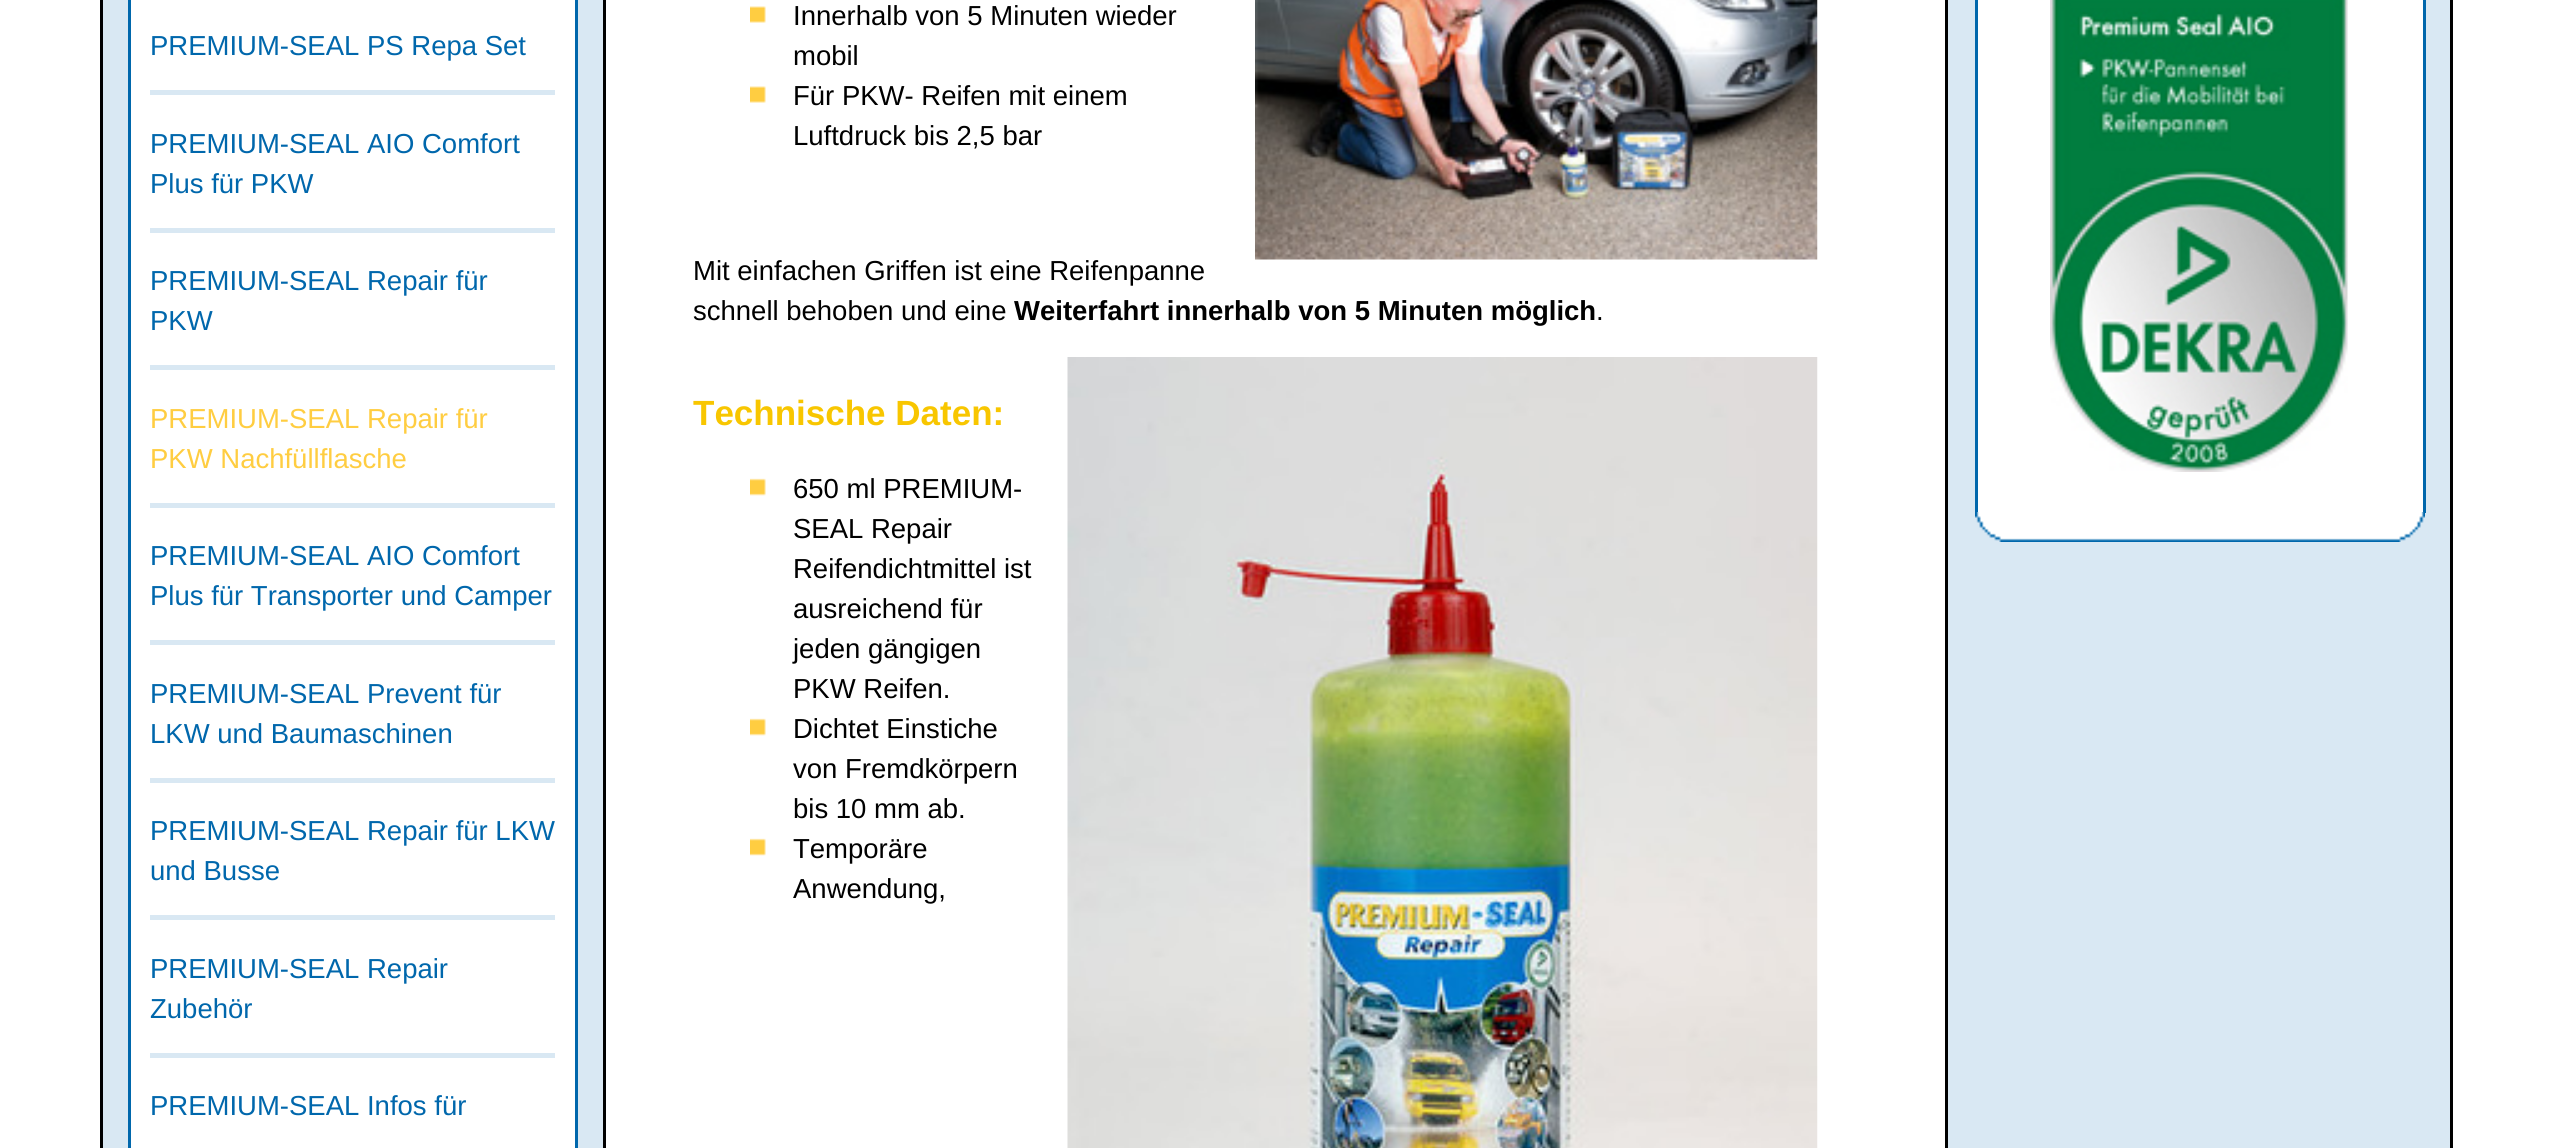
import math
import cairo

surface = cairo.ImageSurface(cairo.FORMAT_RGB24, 2552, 1148)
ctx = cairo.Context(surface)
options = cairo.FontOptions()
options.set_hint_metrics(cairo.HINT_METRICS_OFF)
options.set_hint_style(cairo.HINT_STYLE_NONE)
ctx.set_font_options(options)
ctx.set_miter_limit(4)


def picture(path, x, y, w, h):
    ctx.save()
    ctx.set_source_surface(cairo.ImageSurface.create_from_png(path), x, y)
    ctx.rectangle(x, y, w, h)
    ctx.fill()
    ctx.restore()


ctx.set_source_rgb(1, 1, 1)
ctx.paint()
ctx.set_source_rgb(0.851, 0.91, 0.953)
ctx.rectangle(103, 0, 500, 1148)
ctx.fill()
ctx.set_source_rgb(0, 0, 0)
ctx.rectangle(603, 0, 3, 1148)
ctx.fill()
ctx.rectangle(100, 0, 3, 1148)
ctx.fill()
ctx.set_source_rgb(1, 1, 1)
ctx.rectangle(129.5, -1.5, 447, 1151)
ctx.fill_preserve()
ctx.set_source_rgb(0, 0.404, 0.675)
ctx.set_line_width(3)
ctx.stroke()
ctx.set_source_rgb(0.851, 0.91, 0.953)
ctx.rectangle(150, 90, 405, 5)
ctx.fill()
ctx.select_font_face("Liberation Sans")
ctx.set_font_size(27.5)
ctx.set_source_rgb(0, 0.404, 0.675)
ctx.move_to(150, 55)
ctx.show_text("PREMIUM-SEAL PS Repa Set")
ctx.set_source_rgb(0.851, 0.91, 0.953)
ctx.rectangle(150, 228, 405, 5)
ctx.fill()
ctx.set_source_rgb(0, 0.404, 0.675)
ctx.move_to(150, 153)
ctx.show_text("PREMIUM-SEAL AIO Comfort")
ctx.move_to(150, 193)
ctx.show_text("Plus für PKW")
ctx.set_source_rgb(0.851, 0.91, 0.953)
ctx.rectangle(150, 365, 405, 5)
ctx.fill()
ctx.set_source_rgb(0, 0.404, 0.675)
ctx.move_to(150, 290)
ctx.show_text("PREMIUM-SEAL Repair für")
ctx.move_to(150, 330)
ctx.show_text("PKW")
ctx.set_source_rgb(0.851, 0.91, 0.953)
ctx.rectangle(150, 503, 405, 5)
ctx.fill()
ctx.set_source_rgb(1, 0.804, 0.255)
ctx.move_to(150, 428)
ctx.show_text("PREMIUM-SEAL Repair für")
ctx.move_to(150, 468)
ctx.show_text("PKW Nachfüllflasche")
ctx.set_source_rgb(0.851, 0.91, 0.953)
ctx.rectangle(150, 640, 405, 5)
ctx.fill()
ctx.set_source_rgb(0, 0.404, 0.675)
ctx.move_to(150, 565)
ctx.show_text("PREMIUM-SEAL AIO Comfort")
ctx.move_to(150, 605)
ctx.show_text("Plus für Transporter und Camper")
ctx.set_source_rgb(0.851, 0.91, 0.953)
ctx.rectangle(150, 778, 405, 5)
ctx.fill()
ctx.set_source_rgb(0, 0.404, 0.675)
ctx.move_to(150, 703)
ctx.show_text("PREMIUM-SEAL Prevent für")
ctx.move_to(150, 743)
ctx.show_text("LKW und Baumaschinen")
ctx.set_source_rgb(0.851, 0.91, 0.953)
ctx.rectangle(150, 915, 405, 5)
ctx.fill()
ctx.set_source_rgb(0, 0.404, 0.675)
ctx.move_to(150, 840)
ctx.show_text("PREMIUM-SEAL Repair für LKW")
ctx.move_to(150, 880)
ctx.show_text("und Busse")
ctx.set_source_rgb(0.851, 0.91, 0.953)
ctx.rectangle(150, 1053, 405, 5)
ctx.fill()
ctx.set_source_rgb(0, 0.404, 0.675)
ctx.move_to(150, 978)
ctx.show_text("PREMIUM-SEAL Repair")
ctx.move_to(150, 1018)
ctx.show_text("Zubehör")
ctx.move_to(150, 1115)
ctx.show_text("PREMIUM-SEAL Infos für")
picture("img1.png", 1255, 0, 563, 260)
picture("img2.png", 750, 6, 16, 17)
ctx.set_source_rgb(0, 0, 0)
ctx.move_to(793, 25)
ctx.show_text("Innerhalb von 5 Minuten wieder")
ctx.move_to(793, 65)
ctx.show_text("mobil")
picture("img2.png", 750, 86, 16, 17)
ctx.move_to(793, 105)
ctx.show_text("Für PKW- Reifen mit einem")
ctx.move_to(793, 145)
ctx.show_text("Luftdruck bis 2,5 bar")
ctx.move_to(693, 280)
ctx.show_text("Mit einfachen Griffen ist eine Reifenpanne")
ctx.move_to(693, 320)
ctx.show_text("schnell behoben und eine")
ctx.select_font_face("Liberation Sans", cairo.FONT_SLANT_NORMAL, cairo.FONT_WEIGHT_BOLD)
ctx.move_to(1014, 320)
ctx.show_text("Weiterfahrt innerhalb von 5 Minuten möglich")
ctx.select_font_face("Liberation Sans")
ctx.move_to(1596, 320)
ctx.show_text(".")
ctx.save()
ctx.rectangle(693, 358, 1125, 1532)
ctx.clip()
ctx.select_font_face("Liberation Sans", cairo.FONT_SLANT_NORMAL, cairo.FONT_WEIGHT_BOLD)
ctx.set_font_size(35)
ctx.set_source_rgb(0.969, 0.776, 0)
ctx.move_to(693, 425)
ctx.show_text("Technische Daten:")
ctx.restore()
picture("img3.png", 750, 478, 16, 18)
ctx.move_to(793, 498)
ctx.show_text("650 ml PREMIUM-")
ctx.move_to(793, 538)
ctx.show_text("SEAL Repair")
ctx.move_to(793, 578)
ctx.show_text("Reifendichtmittel ist")
ctx.move_to(793, 618)
ctx.show_text("ausreichend für")
ctx.move_to(793, 658)
ctx.show_text("jeden gängigen")
ctx.move_to(793, 698)
ctx.show_text("PKW Reifen.")
picture("img3.png", 750, 718, 16, 18)
ctx.move_to(793, 738)
ctx.show_text("Dichtet Einstiche")
ctx.move_to(793, 778)
ctx.show_text("von Fremdkörpern")
ctx.move_to(793, 818)
ctx.show_text("bis 10 mm ab.")
picture("img4.png", 750, 838, 16, 18)
ctx.move_to(793, 858)
ctx.show_text("Temporäre")
ctx.move_to(793, 898)
ctx.show_text("Anwendung,")
picture("img5.png", 1067, 357, 751, 791)
ctx.set_source_rgb(0.851, 0.91, 0.953)
ctx.rectangle(1948, 0, 502, 1148)
ctx.fill()
ctx.set_source_rgb(0, 0, 0)
ctx.rectangle(2450, 0, 3, 1148)
ctx.fill()
ctx.rectangle(1945, 0, 3, 1148)
ctx.fill()
ctx.set_source_rgb(1, 1, 1)
ctx.rectangle(1978, 0, 445, 512)
ctx.fill()
ctx.set_source_rgb(0, 0.404, 0.675)
ctx.rectangle(2423, 0, 3, 513)
ctx.fill()
ctx.rectangle(1975, 0, 3, 513)
ctx.fill()
picture("img6.png", 2050, 0, 298, 472)
picture("img7.png", 1975, 512, 450, 30)
surface.write_to_png("page.png")
